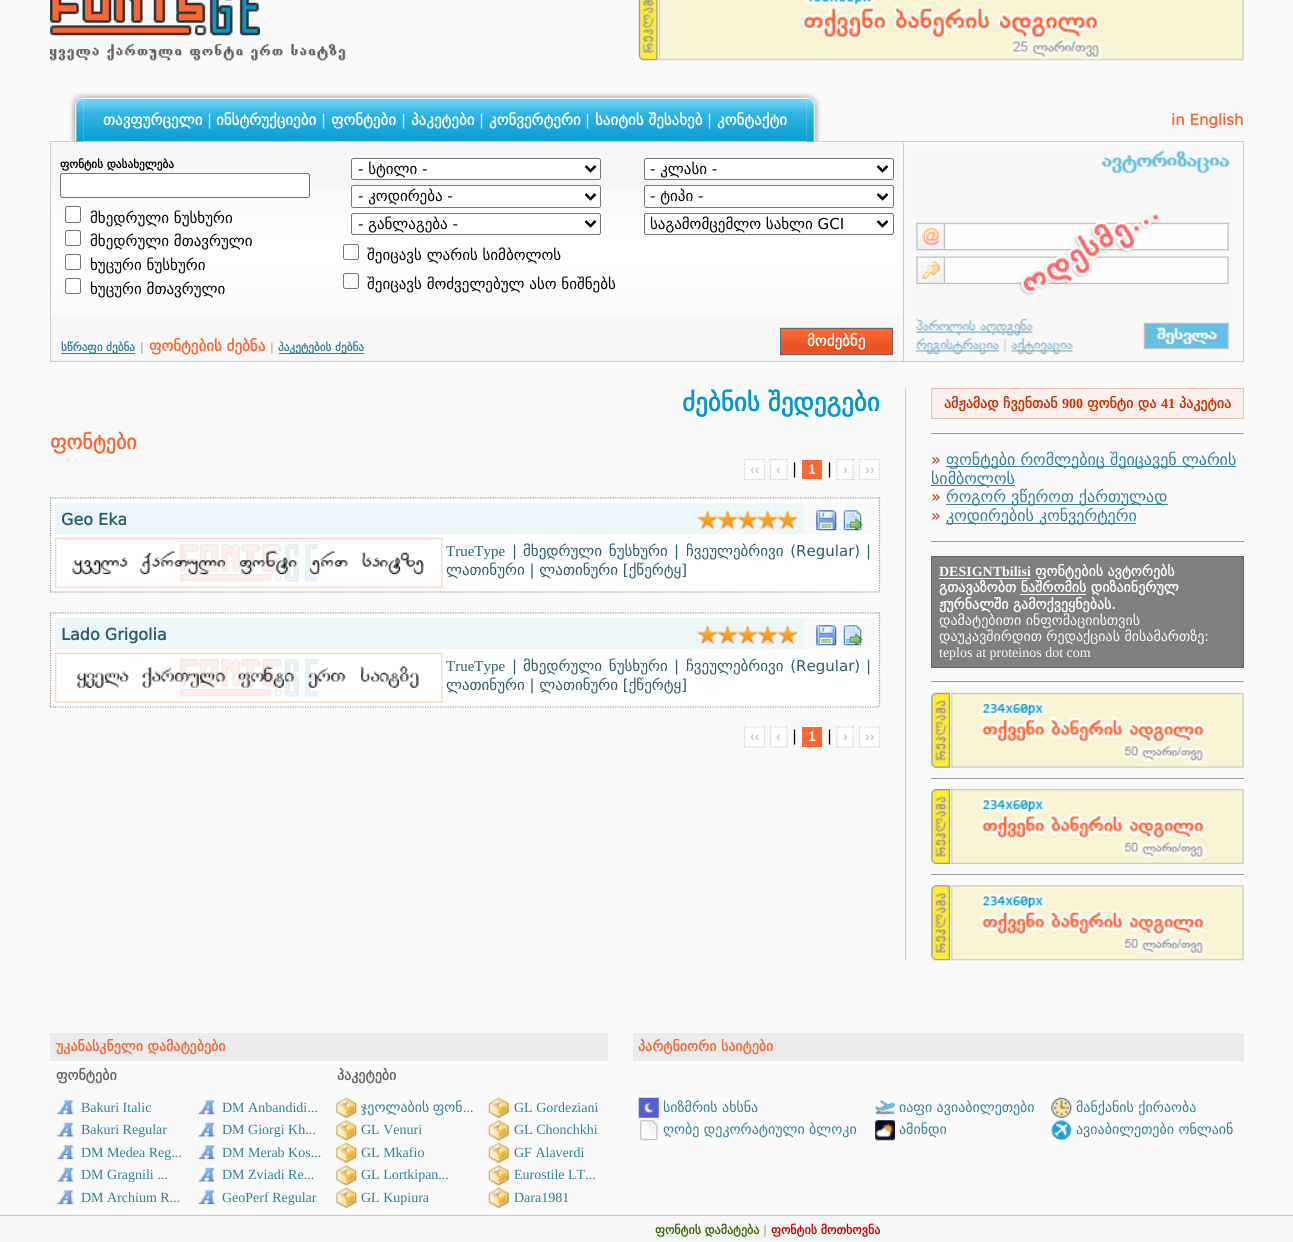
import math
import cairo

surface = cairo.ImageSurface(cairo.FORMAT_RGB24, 1293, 1242)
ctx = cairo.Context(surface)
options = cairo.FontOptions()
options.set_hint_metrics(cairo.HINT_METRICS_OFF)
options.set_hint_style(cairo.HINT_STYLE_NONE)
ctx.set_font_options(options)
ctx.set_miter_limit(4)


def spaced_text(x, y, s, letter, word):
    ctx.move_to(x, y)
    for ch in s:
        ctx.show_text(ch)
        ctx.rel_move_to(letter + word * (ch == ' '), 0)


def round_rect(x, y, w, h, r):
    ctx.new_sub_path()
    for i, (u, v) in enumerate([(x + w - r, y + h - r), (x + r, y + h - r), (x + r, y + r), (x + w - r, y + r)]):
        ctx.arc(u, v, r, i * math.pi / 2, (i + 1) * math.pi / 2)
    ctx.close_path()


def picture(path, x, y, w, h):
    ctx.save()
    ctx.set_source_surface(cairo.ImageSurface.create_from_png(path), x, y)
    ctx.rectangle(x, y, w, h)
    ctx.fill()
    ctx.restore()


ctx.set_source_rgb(0.98, 0.98, 0.98)
ctx.paint()
picture("img1.png", 50, 0, 210, 36)
picture("img2.png", 50, 43, 296, 18)
picture("img3.png", 638, 0, 20, 61)
picture("img4.png", 658, 0, 586, 61)
picture("img6.png", 83, 92, 724, 7)
picture("img5.png", 72, 92, 12, 7)
picture("img7.png", 806, 92, 12, 7)
picture("img9.png", 83, 99, 724, 42)
ctx.set_source_rgb(0.8, 0.8, 0.8)
ctx.rectangle(50, 141, 1194, 1)
ctx.fill()
picture("img8.png", 68, 99, 16, 43)
ctx.select_font_face("DejaVu Sans", cairo.FONT_SLANT_NORMAL, cairo.FONT_WEIGHT_BOLD)
ctx.set_font_size(15)
ctx.set_source_rgb(0.98, 0.98, 0.98)
ctx.move_to(103, 125)
ctx.show_text("თავფურცელი")
ctx.select_font_face("DejaVu Sans")
ctx.move_to(207, 125)
ctx.show_text("|")
ctx.select_font_face("DejaVu Sans", cairo.FONT_SLANT_NORMAL, cairo.FONT_WEIGHT_BOLD)
ctx.move_to(216, 125)
ctx.show_text("ინსტრუქციები")
ctx.select_font_face("DejaVu Sans")
ctx.move_to(321, 125)
ctx.show_text("|")
ctx.select_font_face("DejaVu Sans", cairo.FONT_SLANT_NORMAL, cairo.FONT_WEIGHT_BOLD)
ctx.move_to(331, 125)
ctx.show_text("ფონტები")
ctx.select_font_face("DejaVu Sans")
ctx.move_to(401, 125)
ctx.show_text("|")
ctx.select_font_face("DejaVu Sans", cairo.FONT_SLANT_NORMAL, cairo.FONT_WEIGHT_BOLD)
ctx.move_to(411, 125)
ctx.show_text("პაკეტები")
ctx.select_font_face("DejaVu Sans")
ctx.move_to(479, 125)
ctx.show_text("|")
ctx.select_font_face("DejaVu Sans", cairo.FONT_SLANT_NORMAL, cairo.FONT_WEIGHT_BOLD)
ctx.move_to(489, 125)
ctx.show_text("კონვერტერი")
ctx.select_font_face("DejaVu Sans")
ctx.move_to(585, 125)
ctx.show_text("|")
ctx.select_font_face("DejaVu Sans", cairo.FONT_SLANT_NORMAL, cairo.FONT_WEIGHT_BOLD)
ctx.move_to(595, 125)
ctx.show_text("საიტის შესახებ")
ctx.select_font_face("DejaVu Sans")
ctx.move_to(707, 125)
ctx.show_text("|")
ctx.select_font_face("DejaVu Sans", cairo.FONT_SLANT_NORMAL, cairo.FONT_WEIGHT_BOLD)
ctx.move_to(717, 125)
ctx.show_text("კონტაქტი")
picture("img10.png", 806, 99, 16, 43)
ctx.set_source_rgb(1, 0.4, 0.2)
ctx.move_to(1171, 125)
ctx.show_text("in English")
ctx.set_source_rgb(0.961, 0.961, 0.961)
ctx.rectangle(51, 143, 852, 218)
ctx.fill()
ctx.set_source_rgb(0.8, 0.8, 0.8)
ctx.rectangle(1243, 143, 1, 218)
ctx.fill()
ctx.rectangle(50, 143, 1, 218)
ctx.fill()
picture("img11.png", 51, 190, 852, 126)
ctx.set_font_size(11.25)
ctx.set_source_rgb(0, 0, 0)
ctx.move_to(60, 168)
ctx.show_text("ფონტის დასახელება")
ctx.set_source_rgb(1, 1, 1)
round_rect(60.5, 173.5, 249, 24, 2)
ctx.fill_preserve()
ctx.set_source_rgb(0.463, 0.463, 0.463)
ctx.set_line_width(1)
ctx.stroke()
ctx.set_source_rgb(1, 1, 1)
round_rect(65.5, 206.5, 15, 16, 2)
ctx.fill_preserve()
ctx.set_source_rgb(0.463, 0.463, 0.463)
ctx.stroke()
ctx.select_font_face("DejaVu Sans")
ctx.set_font_size(15)
ctx.set_source_rgb(0, 0, 0)
ctx.move_to(90, 223)
ctx.show_text("მხედრული ნუსხური")
round_rect(65.5, 230.5, 15, 15, 2)
ctx.set_source_rgb(0.463, 0.463, 0.463)
ctx.stroke()
ctx.set_source_rgb(0, 0, 0)
ctx.move_to(90, 246)
ctx.show_text("მხედრული მთავრული")
round_rect(65.5, 254.5, 15, 15, 2)
ctx.set_source_rgb(0.463, 0.463, 0.463)
ctx.stroke()
ctx.set_source_rgb(0, 0, 0)
ctx.move_to(90, 270)
ctx.show_text("ხუცური ნუსხური")
ctx.set_source_rgb(1, 1, 1)
round_rect(65.5, 278.5, 15, 15, 2)
ctx.fill_preserve()
ctx.set_source_rgb(0.463, 0.463, 0.463)
ctx.stroke()
ctx.set_source_rgb(0, 0, 0)
ctx.move_to(90, 294)
ctx.show_text("ხუცური მთავრული")
ctx.set_source_rgb(1, 1, 1)
round_rect(351.5, 158.5, 249, 21, 2)
ctx.fill_preserve()
ctx.set_source_rgb(0.463, 0.463, 0.463)
ctx.stroke()
ctx.new_path()
ctx.move_to(585.5, 166)
ctx.line_to(590.5, 171)
ctx.line_to(595.5, 166)
ctx.set_source_rgb(0, 0, 0)
ctx.set_line_width(2.5)
ctx.stroke()
ctx.move_to(358, 174)
ctx.show_text("- სტილი -")
ctx.set_source_rgb(1, 1, 1)
round_rect(351.5, 185.5, 249, 22, 2)
ctx.fill_preserve()
ctx.set_source_rgb(0.463, 0.463, 0.463)
ctx.set_line_width(1)
ctx.stroke()
ctx.new_path()
ctx.move_to(585.5, 194)
ctx.line_to(590.5, 199)
ctx.line_to(595.5, 194)
ctx.set_source_rgb(0, 0, 0)
ctx.set_line_width(2.5)
ctx.stroke()
ctx.move_to(358, 201)
ctx.show_text("- კოდირება -")
ctx.set_source_rgb(1, 1, 1)
round_rect(351.5, 213.5, 249, 21, 2)
ctx.fill_preserve()
ctx.set_source_rgb(0.463, 0.463, 0.463)
ctx.set_line_width(1)
ctx.stroke()
ctx.new_path()
ctx.move_to(585.5, 221)
ctx.line_to(590.5, 226)
ctx.line_to(595.5, 221)
ctx.set_source_rgb(0, 0, 0)
ctx.set_line_width(2.5)
ctx.stroke()
ctx.move_to(358, 229)
ctx.show_text("- განლაგება -")
round_rect(343.5, 244.5, 15, 15, 2)
ctx.set_source_rgb(0.463, 0.463, 0.463)
ctx.set_line_width(1)
ctx.stroke()
ctx.set_source_rgb(0, 0, 0)
ctx.move_to(367, 260)
ctx.show_text("შეიცავს ლარის სიმბოლოს")
round_rect(343.5, 273.5, 15, 15, 2)
ctx.set_source_rgb(0.463, 0.463, 0.463)
ctx.stroke()
ctx.set_source_rgb(0, 0, 0)
ctx.move_to(367, 289)
ctx.show_text("შეიცავს მოძველებულ ასო ნიშნებს")
ctx.set_source_rgb(1, 1, 1)
round_rect(644.5, 158.5, 249, 21, 2)
ctx.fill_preserve()
ctx.set_source_rgb(0.463, 0.463, 0.463)
ctx.stroke()
ctx.new_path()
ctx.move_to(877.5, 166)
ctx.line_to(882.5, 171)
ctx.line_to(887.5, 166)
ctx.set_source_rgb(0, 0, 0)
ctx.set_line_width(2.5)
ctx.stroke()
ctx.move_to(650, 174)
ctx.show_text("- კლასი -")
ctx.set_source_rgb(1, 1, 1)
round_rect(644.5, 185.5, 249, 22, 2)
ctx.fill_preserve()
ctx.set_source_rgb(0.463, 0.463, 0.463)
ctx.set_line_width(1)
ctx.stroke()
ctx.new_path()
ctx.move_to(877.5, 194)
ctx.line_to(882.5, 199)
ctx.line_to(887.5, 194)
ctx.set_source_rgb(0, 0, 0)
ctx.set_line_width(2.5)
ctx.stroke()
ctx.move_to(650, 201)
ctx.show_text("- ტიპი -")
ctx.set_source_rgb(1, 1, 1)
round_rect(644.5, 213.5, 249, 21, 2)
ctx.fill_preserve()
ctx.set_source_rgb(0.463, 0.463, 0.463)
ctx.set_line_width(1)
ctx.stroke()
ctx.new_path()
ctx.move_to(877.5, 221)
ctx.line_to(882.5, 226)
ctx.line_to(887.5, 221)
ctx.set_source_rgb(0, 0, 0)
ctx.set_line_width(2.5)
ctx.stroke()
ctx.move_to(650, 229)
ctx.show_text("საგამომცემლო სახლი GCI")
ctx.set_source_rgb(0.2, 0.502, 0.6)
ctx.rectangle(61, 353, 74, 1)
ctx.fill()
ctx.select_font_face("DejaVu Sans", cairo.FONT_SLANT_NORMAL, cairo.FONT_WEIGHT_BOLD)
ctx.set_font_size(11.25)
ctx.move_to(61, 351)
ctx.show_text("სწრაფი ძებნა")
ctx.select_font_face("DejaVu Sans")
ctx.set_source_rgb(0.6, 0.6, 0.6)
ctx.move_to(140, 351)
ctx.show_text("|")
ctx.select_font_face("DejaVu Sans", cairo.FONT_SLANT_NORMAL, cairo.FONT_WEIGHT_BOLD)
ctx.set_font_size(15)
ctx.set_source_rgb(1, 0.4, 0.2)
ctx.move_to(149, 351)
ctx.show_text("ფონტების ძებნა")
ctx.select_font_face("DejaVu Sans")
ctx.set_font_size(11.25)
ctx.set_source_rgb(0.6, 0.6, 0.6)
ctx.move_to(270, 351)
ctx.show_text("|")
ctx.set_source_rgb(0.2, 0.502, 0.6)
ctx.rectangle(279, 353, 85, 1)
ctx.fill()
ctx.select_font_face("DejaVu Sans", cairo.FONT_SLANT_NORMAL, cairo.FONT_WEIGHT_BOLD)
ctx.move_to(278, 351)
ctx.show_text("პაკეტების ძებნა")
picture("img12.png", 780, 327, 113, 29)
ctx.rectangle(780.5, 328.5, 112, 26)
ctx.set_source_rgb(0.4, 0.4, 0.4)
ctx.set_line_width(1)
ctx.stroke()
ctx.set_font_size(15)
ctx.set_source_rgb(0.98, 0.98, 0.98)
ctx.move_to(807, 346)
ctx.show_text("მოძებნე")
ctx.set_source_rgb(0.8, 0.8, 0.8)
ctx.rectangle(903, 143, 1, 218)
ctx.fill()
ctx.set_source_rgb(0.969, 0.969, 0.969)
ctx.rectangle(904, 143, 339, 218)
ctx.fill()
picture("img13.png", 916, 150, 314, 205)
ctx.set_source_rgb(0.8, 0.8, 0.8)
ctx.rectangle(50, 361, 1194, 1)
ctx.fill()
ctx.set_font_size(25)
ctx.set_source_rgb(0, 0.6, 0.8)
ctx.move_to(682, 411)
ctx.show_text("ძებნის შედეგები")
ctx.set_font_size(20)
ctx.set_source_rgb(1, 0.4, 0.2)
ctx.move_to(50, 449)
ctx.show_text("ფონტები")
ctx.set_source_rgb(1, 1, 1)
ctx.rectangle(744, 459, 21, 21)
ctx.fill()
ctx.new_path()
ctx.move_to(744, 459.5)
ctx.line_to(765, 459.5)
ctx.move_to(764.5, 459)
ctx.line_to(764.5, 480)
ctx.move_to(744, 479.5)
ctx.line_to(765, 479.5)
ctx.move_to(744.5, 459)
ctx.line_to(744.5, 480)
ctx.set_source_rgb(0.8, 0.8, 0.8)
ctx.set_line_width(1.2)
ctx.set_dash([1.25, 1.25])
ctx.stroke()
ctx.select_font_face("Liberation Sans", cairo.FONT_SLANT_NORMAL, cairo.FONT_WEIGHT_BOLD)
ctx.set_font_size(14)
ctx.move_to(750, 474)
ctx.show_text("‹‹")
ctx.set_source_rgb(1, 1, 1)
ctx.rectangle(770, 459, 18, 21)
ctx.fill()
ctx.new_path()
ctx.move_to(770, 459.5)
ctx.line_to(787.5, 459.5)
ctx.move_to(787, 459)
ctx.line_to(787, 480)
ctx.move_to(770, 479.5)
ctx.line_to(787.5, 479.5)
ctx.move_to(770.5, 459)
ctx.line_to(770.5, 480)
ctx.set_source_rgb(0.8, 0.8, 0.8)
ctx.stroke()
ctx.move_to(776, 474)
ctx.show_text("‹")
ctx.select_font_face("DejaVu Sans")
ctx.set_font_size(15)
ctx.set_source_rgb(0, 0, 0)
ctx.move_to(792, 474)
ctx.show_text("|")
ctx.set_source_rgb(1, 0.4, 0.2)
ctx.rectangle(801.5, 459.5, 21, 20)
ctx.fill_preserve()
ctx.set_source_rgb(1, 1, 1)
ctx.set_line_width(1)
ctx.set_dash([])
ctx.stroke()
ctx.select_font_face("Liberation Sans", cairo.FONT_SLANT_NORMAL, cairo.FONT_WEIGHT_BOLD)
ctx.set_font_size(14)
ctx.set_source_rgb(0.98, 0.98, 0.98)
ctx.move_to(808, 474)
ctx.show_text("1")
ctx.select_font_face("DejaVu Sans")
ctx.set_font_size(15)
ctx.set_source_rgb(0, 0, 0)
ctx.move_to(827, 474)
ctx.show_text("|")
ctx.set_source_rgb(1, 1, 1)
ctx.rectangle(836, 459, 18, 21)
ctx.fill()
ctx.new_path()
ctx.move_to(836, 459.5)
ctx.line_to(854, 459.5)
ctx.move_to(853, 459)
ctx.line_to(853, 480)
ctx.move_to(836, 479.5)
ctx.line_to(854, 479.5)
ctx.move_to(837, 459)
ctx.line_to(837, 480)
ctx.set_source_rgb(0.8, 0.8, 0.8)
ctx.set_line_width(1.2)
ctx.set_dash([1.25, 1.25])
ctx.stroke()
ctx.select_font_face("Liberation Sans", cairo.FONT_SLANT_NORMAL, cairo.FONT_WEIGHT_BOLD)
ctx.set_font_size(14)
ctx.move_to(843, 474)
ctx.show_text("›")
ctx.set_source_rgb(1, 1, 1)
ctx.rectangle(859, 459, 21, 21)
ctx.fill()
ctx.new_path()
ctx.move_to(859, 459.5)
ctx.line_to(880, 459.5)
ctx.move_to(879.5, 459)
ctx.line_to(879.5, 480)
ctx.move_to(859, 479.5)
ctx.line_to(880, 479.5)
ctx.move_to(859.5, 459)
ctx.line_to(859.5, 480)
ctx.set_source_rgb(0.8, 0.8, 0.8)
ctx.stroke()
ctx.move_to(865, 474)
ctx.show_text("››")
ctx.set_source_rgb(1, 1, 1)
ctx.rectangle(50, 498, 830, 95)
ctx.fill()
ctx.new_path()
ctx.move_to(50, 498)
ctx.line_to(880, 498)
ctx.set_source_rgb(0.6, 0.6, 0.6)
ctx.stroke()
ctx.new_path()
ctx.move_to(879.5, 497.5)
ctx.line_to(879.5, 592.5)
ctx.stroke()
ctx.new_path()
ctx.move_to(50, 592)
ctx.line_to(880, 592)
ctx.stroke()
ctx.new_path()
ctx.move_to(50.5, 497.5)
ctx.line_to(50.5, 592.5)
ctx.stroke()
ctx.set_source_rgb(0.929, 0.961, 0.973)
ctx.rectangle(55, 503, 749, 31)
ctx.fill()
ctx.select_font_face("DejaVu Sans", cairo.FONT_SLANT_NORMAL, cairo.FONT_WEIGHT_BOLD)
ctx.set_font_size(16)
ctx.set_source_rgb(0.18, 0.361, 0.42)
ctx.move_to(61, 525)
ctx.show_text("Geo Eka")
picture("img14.png", 697, 510, 21, 19)
picture("img15.png", 717, 510, 21, 19)
picture("img15.png", 737, 510, 21, 19)
picture("img15.png", 757, 510, 21, 19)
picture("img16.png", 777, 510, 21, 19)
ctx.set_source_rgb(0.98, 0.98, 0.98)
ctx.rectangle(804, 503, 71, 31)
ctx.fill()
picture("img17.png", 816, 510, 21, 21)
picture("img18.png", 843, 510, 20, 21)
picture("img19.png", 55, 537, 388, 51)
ctx.select_font_face("Liberation Serif")
ctx.set_font_size(15)
ctx.set_source_rgb(0.18, 0.361, 0.42)
ctx.move_to(446, 556)
ctx.show_text("TrueType")
ctx.select_font_face("DejaVu Sans")
ctx.move_to(512, 556)
ctx.show_text("|")
spaced_text(523, 556, "მხედრული ნუსხური", 0, 2)
ctx.move_to(674, 556)
ctx.show_text("|")
spaced_text(686, 556, "ჩვეულებრივი (Regular)", 0, 2)
ctx.move_to(866, 556)
ctx.show_text("|")
ctx.move_to(446, 575)
ctx.show_text("ლათინური | ლათინური [ქწერტყ]")
ctx.set_source_rgb(1, 1, 1)
ctx.rectangle(50, 613, 830, 95)
ctx.fill()
ctx.new_path()
ctx.move_to(50, 613)
ctx.line_to(880, 613)
ctx.set_source_rgb(0.6, 0.6, 0.6)
ctx.stroke()
ctx.new_path()
ctx.move_to(879.5, 612.5)
ctx.line_to(879.5, 707.5)
ctx.stroke()
ctx.new_path()
ctx.move_to(50, 707)
ctx.line_to(880, 707)
ctx.stroke()
ctx.new_path()
ctx.move_to(50.5, 612.5)
ctx.line_to(50.5, 707.5)
ctx.stroke()
ctx.set_source_rgb(0.929, 0.961, 0.973)
ctx.rectangle(55, 618, 749, 31)
ctx.fill()
ctx.select_font_face("DejaVu Sans", cairo.FONT_SLANT_NORMAL, cairo.FONT_WEIGHT_BOLD)
ctx.set_font_size(16)
ctx.set_source_rgb(0.18, 0.361, 0.42)
ctx.move_to(61, 640)
ctx.show_text("Lado Grigolia")
picture("img14.png", 697, 625, 21, 19)
picture("img15.png", 717, 625, 21, 19)
picture("img15.png", 737, 625, 21, 19)
picture("img15.png", 757, 625, 21, 19)
picture("img16.png", 777, 625, 21, 19)
ctx.set_source_rgb(0.98, 0.98, 0.98)
ctx.rectangle(804, 618, 71, 31)
ctx.fill()
picture("img17.png", 816, 625, 21, 21)
picture("img18.png", 843, 625, 20, 21)
picture("img20.png", 55, 652, 388, 51)
ctx.select_font_face("Liberation Serif")
ctx.set_font_size(15)
ctx.set_source_rgb(0.18, 0.361, 0.42)
ctx.move_to(446, 671)
ctx.show_text("TrueType")
ctx.select_font_face("DejaVu Sans")
ctx.move_to(512, 671)
ctx.show_text("|")
spaced_text(523, 671, "მხედრული ნუსხური", 0, 2)
ctx.move_to(674, 671)
ctx.show_text("|")
spaced_text(686, 671, "ჩვეულებრივი (Regular)", 0, 2)
ctx.move_to(866, 671)
ctx.show_text("|")
ctx.move_to(446, 690)
ctx.show_text("ლათინური | ლათინური [ქწერტყ]")
ctx.set_source_rgb(1, 1, 1)
ctx.rectangle(744, 726, 21, 22)
ctx.fill()
ctx.new_path()
ctx.move_to(744, 727)
ctx.line_to(765, 727)
ctx.move_to(764.5, 726)
ctx.line_to(764.5, 747.5)
ctx.move_to(744, 747)
ctx.line_to(765, 747)
ctx.move_to(744.5, 726)
ctx.line_to(744.5, 747.5)
ctx.set_source_rgb(0.8, 0.8, 0.8)
ctx.stroke()
ctx.select_font_face("Liberation Sans", cairo.FONT_SLANT_NORMAL, cairo.FONT_WEIGHT_BOLD)
ctx.set_font_size(14)
ctx.move_to(750, 741)
ctx.show_text("‹‹")
ctx.set_source_rgb(1, 1, 1)
ctx.rectangle(770, 726, 18, 22)
ctx.fill()
ctx.new_path()
ctx.move_to(770, 727)
ctx.line_to(787.5, 727)
ctx.move_to(787, 726)
ctx.line_to(787, 747.5)
ctx.move_to(770, 747)
ctx.line_to(787.5, 747)
ctx.move_to(770.5, 726)
ctx.line_to(770.5, 747.5)
ctx.set_source_rgb(0.8, 0.8, 0.8)
ctx.stroke()
ctx.move_to(776, 741)
ctx.show_text("‹")
ctx.select_font_face("DejaVu Sans")
ctx.set_font_size(15)
ctx.set_source_rgb(0, 0, 0)
ctx.move_to(792, 741)
ctx.show_text("|")
ctx.set_source_rgb(1, 0.4, 0.2)
ctx.rectangle(801.5, 726.5, 21, 21)
ctx.fill_preserve()
ctx.set_source_rgb(1, 1, 1)
ctx.set_line_width(1)
ctx.set_dash([])
ctx.stroke()
ctx.select_font_face("Liberation Sans", cairo.FONT_SLANT_NORMAL, cairo.FONT_WEIGHT_BOLD)
ctx.set_font_size(14)
ctx.set_source_rgb(0.98, 0.98, 0.98)
ctx.move_to(808, 741)
ctx.show_text("1")
ctx.select_font_face("DejaVu Sans")
ctx.set_font_size(15)
ctx.set_source_rgb(0, 0, 0)
ctx.move_to(827, 741)
ctx.show_text("|")
ctx.set_source_rgb(1, 1, 1)
ctx.rectangle(836, 726, 18, 22)
ctx.fill()
ctx.new_path()
ctx.move_to(836, 727)
ctx.line_to(854, 727)
ctx.move_to(853, 726)
ctx.line_to(853, 747.5)
ctx.move_to(836, 747)
ctx.line_to(854, 747)
ctx.move_to(837, 726)
ctx.line_to(837, 747.5)
ctx.set_source_rgb(0.8, 0.8, 0.8)
ctx.set_line_width(1.2)
ctx.set_dash([1.25, 1.25])
ctx.stroke()
ctx.select_font_face("Liberation Sans", cairo.FONT_SLANT_NORMAL, cairo.FONT_WEIGHT_BOLD)
ctx.set_font_size(14)
ctx.move_to(843, 741)
ctx.show_text("›")
ctx.set_source_rgb(1, 1, 1)
ctx.rectangle(859, 726, 21, 22)
ctx.fill()
ctx.new_path()
ctx.move_to(859, 727)
ctx.line_to(880, 727)
ctx.move_to(879.5, 726)
ctx.line_to(879.5, 747.5)
ctx.move_to(859, 747)
ctx.line_to(880, 747)
ctx.move_to(859.5, 726)
ctx.line_to(859.5, 747.5)
ctx.set_source_rgb(0.8, 0.8, 0.8)
ctx.stroke()
ctx.move_to(865, 741)
ctx.show_text("››")
ctx.rectangle(905, 388, 1, 572)
ctx.fill()
ctx.set_source_rgb(0.973, 0.937, 0.929)
ctx.rectangle(931.5, 388.5, 312, 30)
ctx.fill_preserve()
ctx.set_source_rgb(0.902, 0.749, 0.702)
ctx.set_line_width(1)
ctx.set_dash([])
ctx.stroke()
ctx.select_font_face("DejaVu Sans", cairo.FONT_SLANT_NORMAL, cairo.FONT_WEIGHT_BOLD)
ctx.set_source_rgb(0.8, 0.2, 0)
ctx.move_to(944, 408)
ctx.show_text("ამჟამად ჩვენთან")
ctx.select_font_face("Liberation Serif", cairo.FONT_SLANT_NORMAL, cairo.FONT_WEIGHT_BOLD)
ctx.move_to(1062, 408)
ctx.show_text("900")
ctx.select_font_face("DejaVu Sans", cairo.FONT_SLANT_NORMAL, cairo.FONT_WEIGHT_BOLD)
ctx.move_to(1087, 408)
ctx.show_text("ფონტი და")
ctx.select_font_face("Liberation Serif", cairo.FONT_SLANT_NORMAL, cairo.FONT_WEIGHT_BOLD)
ctx.move_to(1161, 408)
ctx.show_text("41")
ctx.select_font_face("DejaVu Sans", cairo.FONT_SLANT_NORMAL, cairo.FONT_WEIGHT_BOLD)
ctx.move_to(1179, 408)
ctx.show_text("პაკეტია")
ctx.set_source_rgb(0.6, 0.6, 0.6)
ctx.rectangle(931, 433, 313, 1)
ctx.fill()
ctx.select_font_face("DejaVu Sans")
ctx.set_font_size(16)
ctx.set_source_rgb(0.8, 0.2, 0)
ctx.move_to(931, 465)
ctx.show_text("»")
ctx.set_source_rgb(0.2, 0.502, 0.635)
ctx.rectangle(946, 466, 290, 1)
ctx.fill()
ctx.move_to(946, 465)
ctx.show_text("ფონტები რომლებიც შეიცავენ ლარის")
ctx.rectangle(931, 485, 84, 1)
ctx.fill()
ctx.move_to(931, 484)
ctx.show_text("სიმბოლოს")
ctx.set_source_rgb(0.8, 0.2, 0)
ctx.move_to(931, 502)
ctx.show_text("»")
ctx.set_source_rgb(0.2, 0.502, 0.635)
ctx.rectangle(946, 504, 222, 1)
ctx.fill()
ctx.move_to(946, 502)
ctx.show_text("როგორ ვწეროთ ქართულად")
ctx.set_source_rgb(0.8, 0.2, 0)
ctx.move_to(931, 521)
ctx.show_text("»")
ctx.set_source_rgb(0.2, 0.502, 0.635)
ctx.rectangle(946, 523, 190, 1)
ctx.fill()
ctx.move_to(946, 521)
ctx.show_text("კოდირების კონვერტერი")
ctx.set_source_rgb(0.6, 0.6, 0.6)
ctx.rectangle(931, 541, 313, 1)
ctx.fill()
ctx.set_source_rgb(0.498, 0.498, 0.498)
ctx.rectangle(931.5, 556.5, 312, 111)
ctx.fill_preserve()
ctx.set_source_rgb(0.392, 0.392, 0.392)
ctx.stroke()
ctx.select_font_face("Liberation Serif", cairo.FONT_SLANT_NORMAL, cairo.FONT_WEIGHT_BOLD)
ctx.set_font_size(14)
ctx.set_source_rgb(0.98, 0.98, 0.98)
ctx.move_to(939, 576)
ctx.show_text("DESIGNTbilisi")
ctx.rectangle(939, 578, 91, 1)
ctx.fill()
ctx.select_font_face("DejaVu Sans", cairo.FONT_SLANT_NORMAL, cairo.FONT_WEIGHT_BOLD)
ctx.move_to(1035, 576)
ctx.show_text("ფონტების ავტორებს")
ctx.move_to(939, 592)
ctx.show_text("გთავაზობთ ნაშრომის დიზაინერულ")
ctx.rectangle(1020, 594, 66, 1)
ctx.fill()
ctx.move_to(939, 609)
ctx.show_text("ჟურნალში გამოქვეყნებას.")
ctx.select_font_face("DejaVu Sans")
ctx.move_to(939, 625)
ctx.show_text("დამატებითი ინფომაციისთვის")
ctx.move_to(939, 641)
ctx.show_text("დაუკავშირდით რედაქციას მისამართზე:")
ctx.select_font_face("Liberation Serif")
ctx.move_to(939, 657)
ctx.show_text("teplos at proteinos dot com")
ctx.set_source_rgb(0.6, 0.6, 0.6)
ctx.rectangle(931, 681, 313, 1)
ctx.fill()
picture("img21.png", 931, 692, 20, 76)
picture("img22.png", 951, 692, 293, 76)
ctx.rectangle(931, 778, 313, 1)
ctx.fill()
picture("img23.png", 931, 789, 20, 75)
picture("img24.png", 951, 789, 293, 75)
ctx.rectangle(931, 874, 313, 1)
ctx.fill()
picture("img25.png", 931, 885, 20, 76)
picture("img26.png", 951, 885, 293, 76)
ctx.set_source_rgb(0.918, 0.918, 0.918)
ctx.rectangle(50, 1033, 558, 28)
ctx.fill()
ctx.select_font_face("DejaVu Sans", cairo.FONT_SLANT_NORMAL, cairo.FONT_WEIGHT_BOLD)
ctx.set_source_rgb(1, 0.4, 0.2)
ctx.move_to(56, 1051)
ctx.show_text("უკანასკნელი დამატებები")
ctx.set_source_rgb(0.918, 0.918, 0.918)
ctx.rectangle(633, 1033, 611, 28)
ctx.fill()
ctx.set_source_rgb(1, 0.4, 0.2)
ctx.move_to(638, 1051)
ctx.show_text("პარტნიორი საიტები")
ctx.set_source_rgb(0.4, 0.4, 0.4)
ctx.move_to(56, 1080)
ctx.show_text("ფონტები")
ctx.move_to(337, 1080)
ctx.show_text("პაკეტები")
picture("img27.png", 57, 1100, 17, 15)
ctx.select_font_face("Liberation Serif")
ctx.set_source_rgb(0.2, 0.502, 0.6)
ctx.move_to(81, 1112)
ctx.show_text("Bakuri Italic")
picture("img28.png", 57, 1122, 17, 15)
ctx.move_to(81, 1134)
ctx.show_text("Bakuri Regular")
picture("img27.png", 57, 1145, 17, 15)
ctx.move_to(81, 1157)
ctx.show_text("DM Medea Reg...")
picture("img28.png", 57, 1167, 17, 15)
ctx.move_to(81, 1179)
ctx.show_text("DM Gragnili ...")
picture("img27.png", 57, 1190, 17, 15)
ctx.move_to(81, 1202)
ctx.show_text("DM Archium R...")
picture("img29.png", 198, 1100, 18, 15)
ctx.move_to(222, 1112)
ctx.show_text("DM Anbandidi...")
picture("img30.png", 198, 1122, 18, 15)
ctx.move_to(222, 1134)
ctx.show_text("DM Giorgi Kh...")
picture("img29.png", 198, 1145, 18, 15)
ctx.move_to(222, 1157)
ctx.show_text("DM Merab Kos...")
picture("img30.png", 198, 1167, 18, 15)
ctx.move_to(222, 1179)
ctx.show_text("DM Zviadi Re...")
picture("img29.png", 198, 1190, 18, 15)
ctx.move_to(222, 1202)
ctx.show_text("GeoPerf Regular")
picture("img31.png", 336, 1097, 21, 21)
ctx.select_font_face("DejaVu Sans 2")
spaced_text(361, 1112, "ჯეოლაბის ფონ", 0, -1)
ctx.select_font_face("Liberation Serif")
ctx.move_to(463, 1112)
ctx.show_text("...")
picture("img32.png", 336, 1120, 21, 21)
ctx.move_to(361, 1134)
ctx.show_text("GL Venuri")
picture("img31.png", 336, 1142, 21, 21)
ctx.move_to(361, 1157)
ctx.show_text("GL Mkafio")
picture("img32.png", 336, 1165, 21, 21)
ctx.move_to(361, 1179)
ctx.show_text("GL Lortkipan...")
picture("img31.png", 336, 1187, 21, 21)
ctx.move_to(361, 1202)
ctx.show_text("GL Kupiura")
picture("img33.png", 488, 1097, 21, 21)
ctx.move_to(514, 1112)
ctx.show_text("GL Gordeziani")
picture("img34.png", 488, 1120, 21, 21)
ctx.move_to(514, 1134)
ctx.show_text("GL Chonchkhi")
picture("img33.png", 488, 1142, 21, 21)
ctx.move_to(514, 1157)
ctx.show_text("GF Alaverdi")
picture("img34.png", 488, 1165, 21, 21)
ctx.move_to(514, 1179)
ctx.show_text("Eurostile LT...")
picture("img33.png", 488, 1187, 21, 21)
ctx.move_to(514, 1202)
ctx.show_text("Dara1981")
picture("img35.png", 638, 1097, 21, 21)
ctx.select_font_face("DejaVu Sans")
ctx.move_to(663, 1112)
ctx.show_text("სიზმრის ახსნა")
picture("img36.png", 640, 1120, 18, 21)
ctx.move_to(663, 1134)
ctx.show_text("ღობე დეკორატიული ბლოკი")
picture("img37.png", 875, 1100, 20, 15)
ctx.move_to(899, 1112)
ctx.show_text("იაფი ავიაბილეთები")
picture("img38.png", 875, 1120, 20, 21)
ctx.move_to(899, 1134)
ctx.show_text("ამინდი")
picture("img39.png", 1051, 1097, 21, 21)
ctx.move_to(1076, 1112)
ctx.show_text("მანქანის ქირაობა")
picture("img40.png", 1051, 1120, 21, 21)
ctx.move_to(1076, 1134)
ctx.show_text("ავიაბილეთები ონლაინ")
ctx.set_source_rgb(0.8, 0.8, 0.8)
ctx.rectangle(0, 1215, 1293, 1)
ctx.fill()
ctx.set_source_rgb(0.961, 0.961, 0.961)
ctx.rectangle(0, 1216, 1293, 26)
ctx.fill()
ctx.select_font_face("DejaVu Sans", cairo.FONT_SLANT_NORMAL, cairo.FONT_WEIGHT_BOLD)
ctx.set_font_size(12)
ctx.set_source_rgb(0.2, 0.4, 0)
ctx.move_to(655, 1234)
ctx.show_text("ფონტის დამატება")
ctx.select_font_face("DejaVu Sans")
ctx.set_source_rgb(0.6, 0.6, 0.6)
ctx.move_to(763, 1234)
ctx.show_text("|")
ctx.select_font_face("DejaVu Sans", cairo.FONT_SLANT_NORMAL, cairo.FONT_WEIGHT_BOLD)
ctx.set_source_rgb(0.8, 0, 0)
ctx.move_to(771, 1234)
ctx.show_text("ფონტის მოთხოვნა")
surface.write_to_png("page.png")
